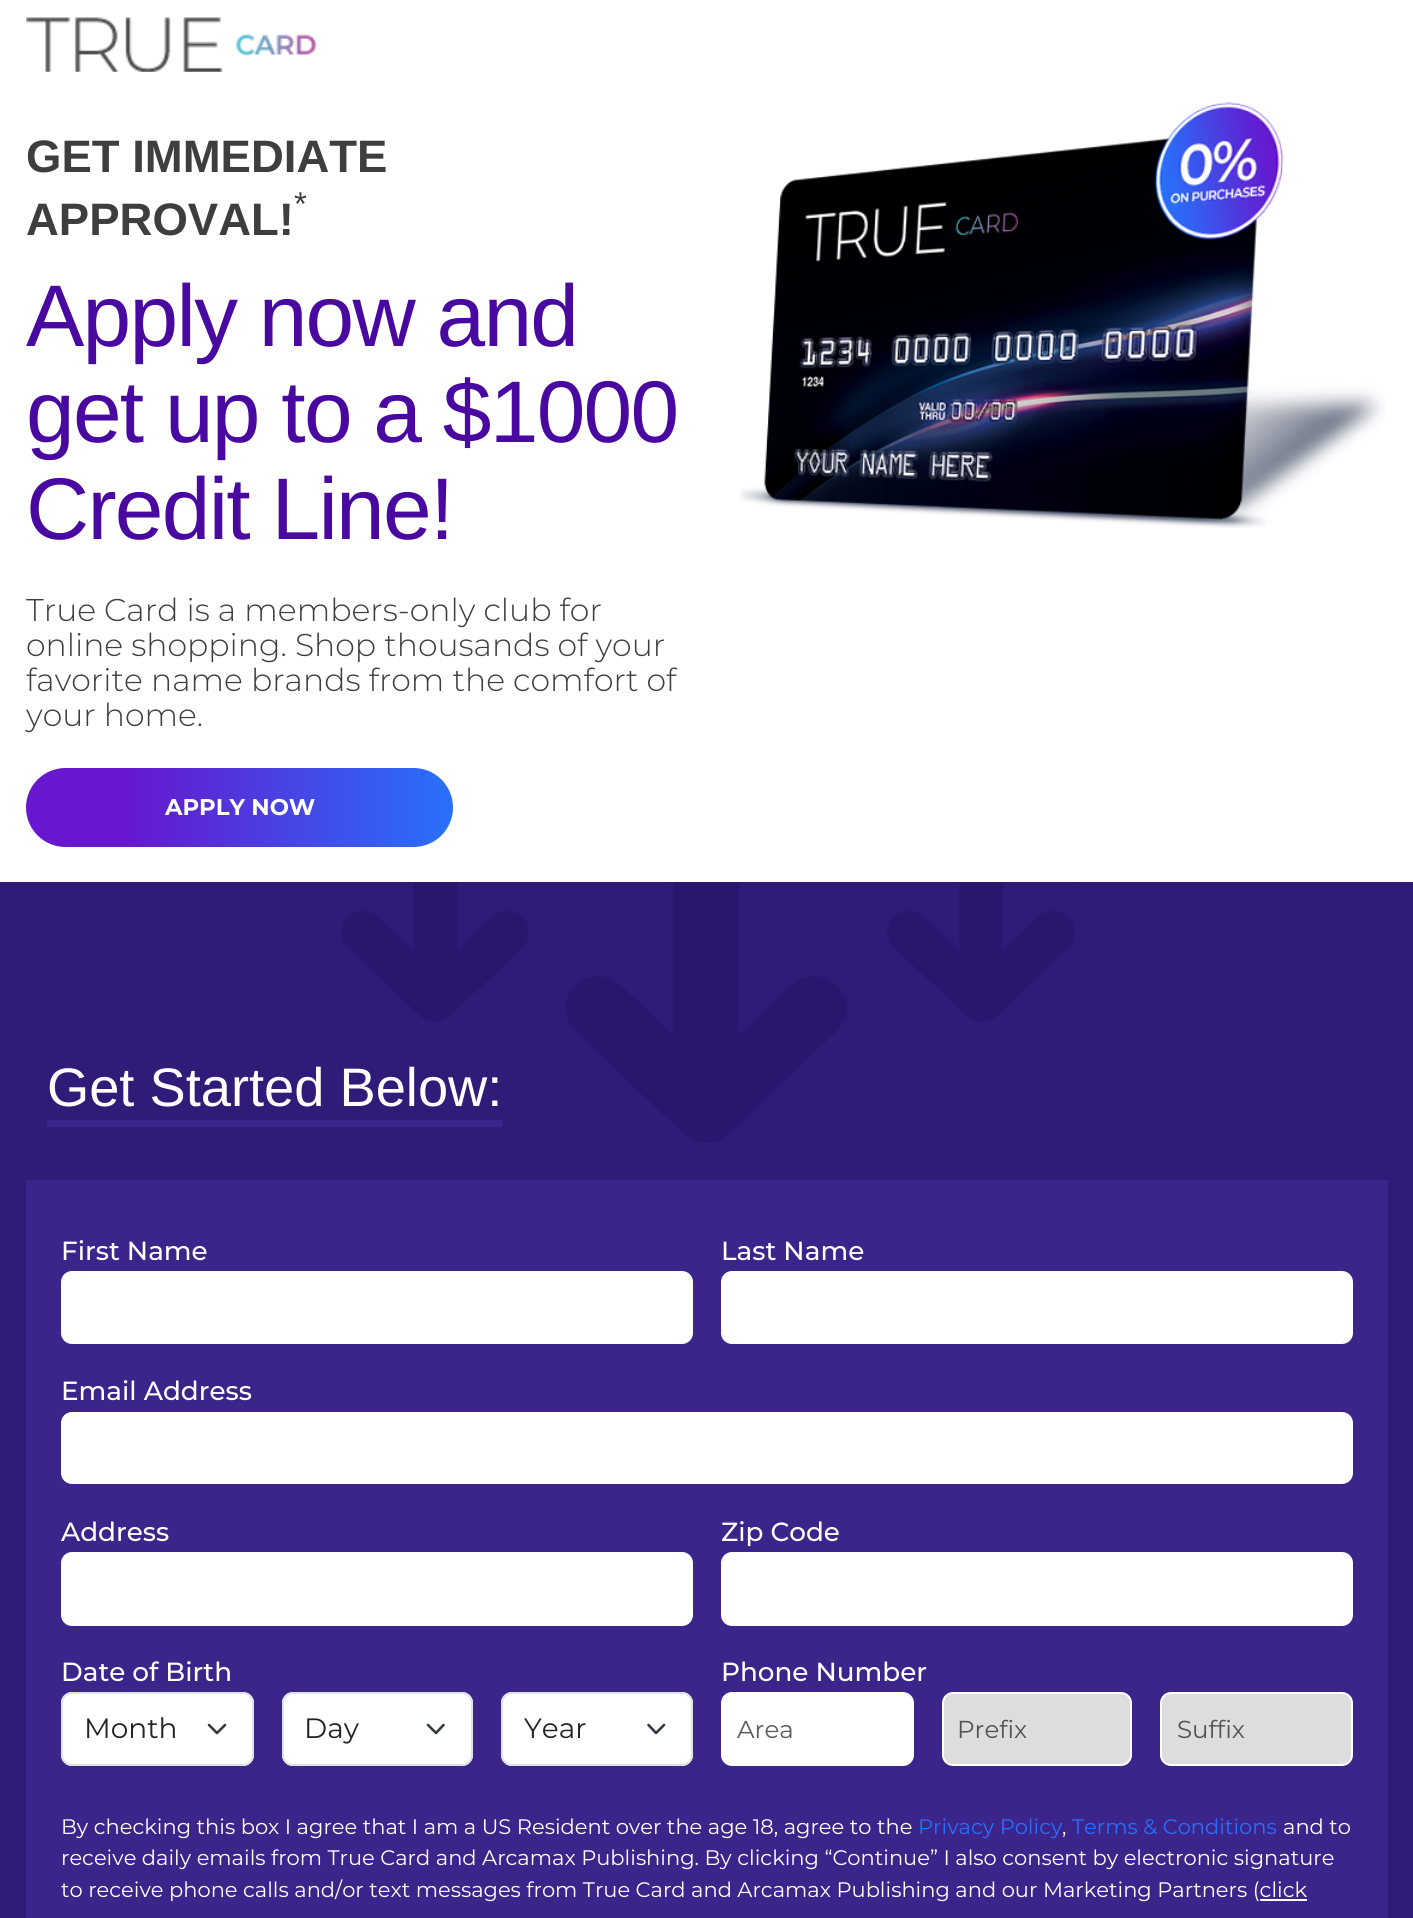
import math
import cairo

surface = cairo.ImageSurface(cairo.FORMAT_RGB24, 1413, 1918)
ctx = cairo.Context(surface)
options = cairo.FontOptions()
options.set_hint_metrics(cairo.HINT_METRICS_OFF)
options.set_hint_style(cairo.HINT_STYLE_NONE)
ctx.set_font_options(options)
ctx.set_miter_limit(4)


def spaced_text(x, y, s, letter, word):
    ctx.move_to(x, y)
    for ch in s:
        ctx.show_text(ch)
        ctx.rel_move_to(letter + word * (ch == ' '), 0)


def round_rect(x, y, w, h, r):
    ctx.new_sub_path()
    for i, (u, v) in enumerate([(x + w - r, y + h - r), (x + r, y + h - r), (x + r, y + r), (x + w - r, y + r)]):
        ctx.arc(u, v, r, i * math.pi / 2, (i + 1) * math.pi / 2)
    ctx.close_path()


def picture(path, x, y, w, h):
    ctx.save()
    ctx.set_source_surface(cairo.ImageSurface.create_from_png(path), x, y)
    ctx.rectangle(x, y, w, h)
    ctx.fill()
    ctx.restore()


ctx.set_source_rgb(1, 1, 1)
ctx.paint()
picture("img1.png", 26, 17, 292, 55)
ctx.select_font_face("Liberation Sans", cairo.FONT_SLANT_NORMAL, cairo.FONT_WEIGHT_BOLD)
ctx.set_font_size(45.5)
ctx.set_source_rgb(0.243, 0.243, 0.243)
ctx.move_to(26, 172)
ctx.show_text("GET IMMEDIATE")
ctx.select_font_face("Liberation Sans")
ctx.set_font_size(33)
ctx.move_to(294, 215)
ctx.show_text("*")
ctx.select_font_face("Liberation Sans", cairo.FONT_SLANT_NORMAL, cairo.FONT_WEIGHT_BOLD)
ctx.set_font_size(45.5)
ctx.move_to(26, 235)
ctx.show_text("APPROVAL!")
ctx.select_font_face("Liberation Sans")
ctx.set_font_size(87.5)
ctx.set_source_rgb(0.286, 0.035, 0.627)
spaced_text(26, 346, "Apply now and", -1.75, 0)
spaced_text(26, 442, "get up to a $1000", -1.75, 0)
spaced_text(26, 539, "Credit Line!", -1.75, 0)
ctx.select_font_face("Montserrat Light")
ctx.set_font_size(31.5)
ctx.set_source_rgb(0.243, 0.243, 0.243)
ctx.move_to(26, 621)
ctx.show_text("True Card is a members-only club for")
ctx.move_to(26, 656)
ctx.show_text("online shopping. Shop thousands of your")
ctx.move_to(26, 691)
ctx.show_text("favorite name brands from the comfort of")
ctx.move_to(26, 726)
ctx.show_text("your home.")
gradient = cairo.LinearGradient(26, 808, 453, 808)
gradient.add_color_stop_rgba(0.23, 0.404, 0.09, 0.804, 1)
gradient.add_color_stop_rgba(1, 0.157, 0.443, 0.98, 1)
ctx.set_source(gradient)
round_rect(26, 768, 427, 79, 39.5)
ctx.fill()
ctx.select_font_face("Montserrat", cairo.FONT_SLANT_NORMAL, cairo.FONT_WEIGHT_BOLD)
ctx.set_font_size(22.75)
ctx.set_source_rgb(1, 1, 1)
ctx.move_to(165, 815)
ctx.show_text("APPLY NOW")
picture("img2.png", 739, 102, 646, 426)
ctx.set_source_rgb(0.188, 0.106, 0.475)
ctx.rectangle(0, 882, 1413, 1036)
ctx.fill()
picture("img3.png", 341, 882, 734, 261)
ctx.set_source_rgb(0.231, 0.141, 0.541)
ctx.rectangle(47, 1120, 455, 7)
ctx.fill()
ctx.select_font_face("Liberation Sans")
ctx.set_font_size(54.25)
ctx.set_source_rgb(1, 1, 1)
ctx.move_to(47, 1106)
ctx.show_text("Get Started Below:")
ctx.set_source_rgb(0.231, 0.141, 0.541)
ctx.rectangle(26, 1180, 1362, 738)
ctx.fill()
ctx.select_font_face("Montserrat Medium")
ctx.set_font_size(26.25)
ctx.set_source_rgb(1, 1, 1)
ctx.move_to(61, 1260)
ctx.show_text("First Name")
round_rect(62, 1272, 630, 71, 10)
ctx.fill_preserve()
ctx.stroke()
ctx.move_to(721, 1260)
ctx.show_text("Last Name")
round_rect(722, 1272, 630, 71, 10)
ctx.fill_preserve()
ctx.stroke()
ctx.move_to(61, 1400)
ctx.show_text("Email Address")
round_rect(62, 1413, 1290, 70, 10)
ctx.fill_preserve()
ctx.stroke()
ctx.move_to(61, 1541)
ctx.show_text("Address")
round_rect(62, 1553, 630, 72, 10)
ctx.fill_preserve()
ctx.stroke()
ctx.move_to(721, 1541)
ctx.show_text("Zip Code")
round_rect(722, 1553, 630, 72, 10)
ctx.fill_preserve()
ctx.stroke()
ctx.move_to(61, 1681)
ctx.show_text("Date of Birth")
round_rect(61, 1692, 193, 74, 11)
ctx.fill()
ctx.new_path()
ctx.move_to(209, 1725)
ctx.line_to(217, 1733)
ctx.line_to(225, 1725)
ctx.set_source_rgb(0.204, 0.227, 0.251)
ctx.set_line_width(2.6)
ctx.set_line_cap(cairo.LINE_CAP_ROUND)
ctx.set_line_join(cairo.LINE_JOIN_ROUND)
ctx.stroke()
round_rect(62, 1693, 191, 72, 10)
ctx.set_source_rgb(0.871, 0.886, 0.902)
ctx.set_line_width(2)
ctx.set_line_cap(cairo.LINE_CAP_BUTT)
ctx.set_line_join(cairo.LINE_JOIN_MITER)
ctx.stroke()
ctx.select_font_face("Montserrat")
ctx.set_font_size(28)
ctx.set_source_rgb(0.129, 0.145, 0.161)
ctx.move_to(84, 1738)
ctx.show_text("Month")
ctx.set_source_rgb(1, 1, 1)
round_rect(282, 1692, 191, 74, 11)
ctx.fill()
ctx.new_path()
ctx.move_to(428, 1725)
ctx.line_to(436, 1733)
ctx.line_to(443.5, 1725)
ctx.set_source_rgb(0.204, 0.227, 0.251)
ctx.set_line_width(2.6)
ctx.set_line_cap(cairo.LINE_CAP_ROUND)
ctx.set_line_join(cairo.LINE_JOIN_ROUND)
ctx.stroke()
round_rect(283, 1693, 189, 72, 10)
ctx.set_source_rgb(0.871, 0.886, 0.902)
ctx.set_line_width(2)
ctx.set_line_cap(cairo.LINE_CAP_BUTT)
ctx.set_line_join(cairo.LINE_JOIN_MITER)
ctx.stroke()
ctx.set_source_rgb(0.129, 0.145, 0.161)
ctx.move_to(304, 1738)
ctx.show_text("Day")
ctx.set_source_rgb(1, 1, 1)
round_rect(501, 1692, 192, 74, 11)
ctx.fill()
ctx.new_path()
ctx.move_to(648.5, 1725)
ctx.line_to(656, 1733)
ctx.line_to(664, 1725)
ctx.set_source_rgb(0.204, 0.227, 0.251)
ctx.set_line_width(2.6)
ctx.set_line_cap(cairo.LINE_CAP_ROUND)
ctx.set_line_join(cairo.LINE_JOIN_ROUND)
ctx.stroke()
round_rect(502, 1693, 190, 72, 10)
ctx.set_source_rgb(0.871, 0.886, 0.902)
ctx.set_line_width(2)
ctx.set_line_cap(cairo.LINE_CAP_BUTT)
ctx.set_line_join(cairo.LINE_JOIN_MITER)
ctx.stroke()
ctx.set_source_rgb(0.129, 0.145, 0.161)
ctx.move_to(524, 1738)
ctx.show_text("Year")
ctx.select_font_face("Montserrat Medium")
ctx.set_font_size(26.25)
ctx.set_source_rgb(1, 1, 1)
ctx.move_to(721, 1681)
ctx.show_text("Phone Number")
round_rect(722, 1693, 191, 72, 10)
ctx.fill_preserve()
ctx.stroke()
ctx.select_font_face("Montserrat")
ctx.set_font_size(24.5)
ctx.set_source_rgb(0.349, 0.361, 0.373)
ctx.move_to(737, 1738)
ctx.show_text("Area")
ctx.set_source_rgb(0.867, 0.867, 0.867)
round_rect(943, 1693, 188, 72, 10)
ctx.fill_preserve()
ctx.set_source_rgb(1, 1, 1)
ctx.stroke()
ctx.set_source_rgb(0.314, 0.325, 0.337)
ctx.move_to(957, 1738)
ctx.show_text("Prefix")
ctx.set_source_rgb(0.867, 0.867, 0.867)
round_rect(1161, 1693, 191, 72, 10)
ctx.fill_preserve()
ctx.set_source_rgb(1, 1, 1)
ctx.stroke()
ctx.set_source_rgb(0.314, 0.325, 0.337)
ctx.move_to(1177, 1738)
ctx.show_text("Suffix")
ctx.set_font_size(21)
ctx.set_source_rgb(1, 1, 1)
ctx.move_to(61, 1834)
ctx.show_text("By checking this box I agree that I am a US Resident over the age 18, agree to the")
ctx.set_source_rgb(0.165, 0.431, 0.976)
ctx.move_to(918, 1834)
ctx.show_text("Privacy Policy")
ctx.set_source_rgb(1, 1, 1)
ctx.move_to(1062, 1834)
ctx.show_text(",")
ctx.set_source_rgb(0.165, 0.431, 0.976)
ctx.move_to(1072, 1834)
ctx.show_text("Terms & Conditions")
ctx.set_source_rgb(1, 1, 1)
ctx.move_to(1283, 1834)
ctx.show_text("and to")
ctx.move_to(61, 1865)
ctx.show_text("receive daily emails from True Card and Arcamax Publishing. By clicking “Continue” I also consent by electronic signature")
ctx.move_to(61, 1897)
ctx.show_text("to receive phone calls and/or text messages from True Card and Arcamax Publishing and our Marketing Partners (click")
ctx.rectangle(1260, 1899, 47, 2)
ctx.fill()
surface.write_to_png("page.png")
